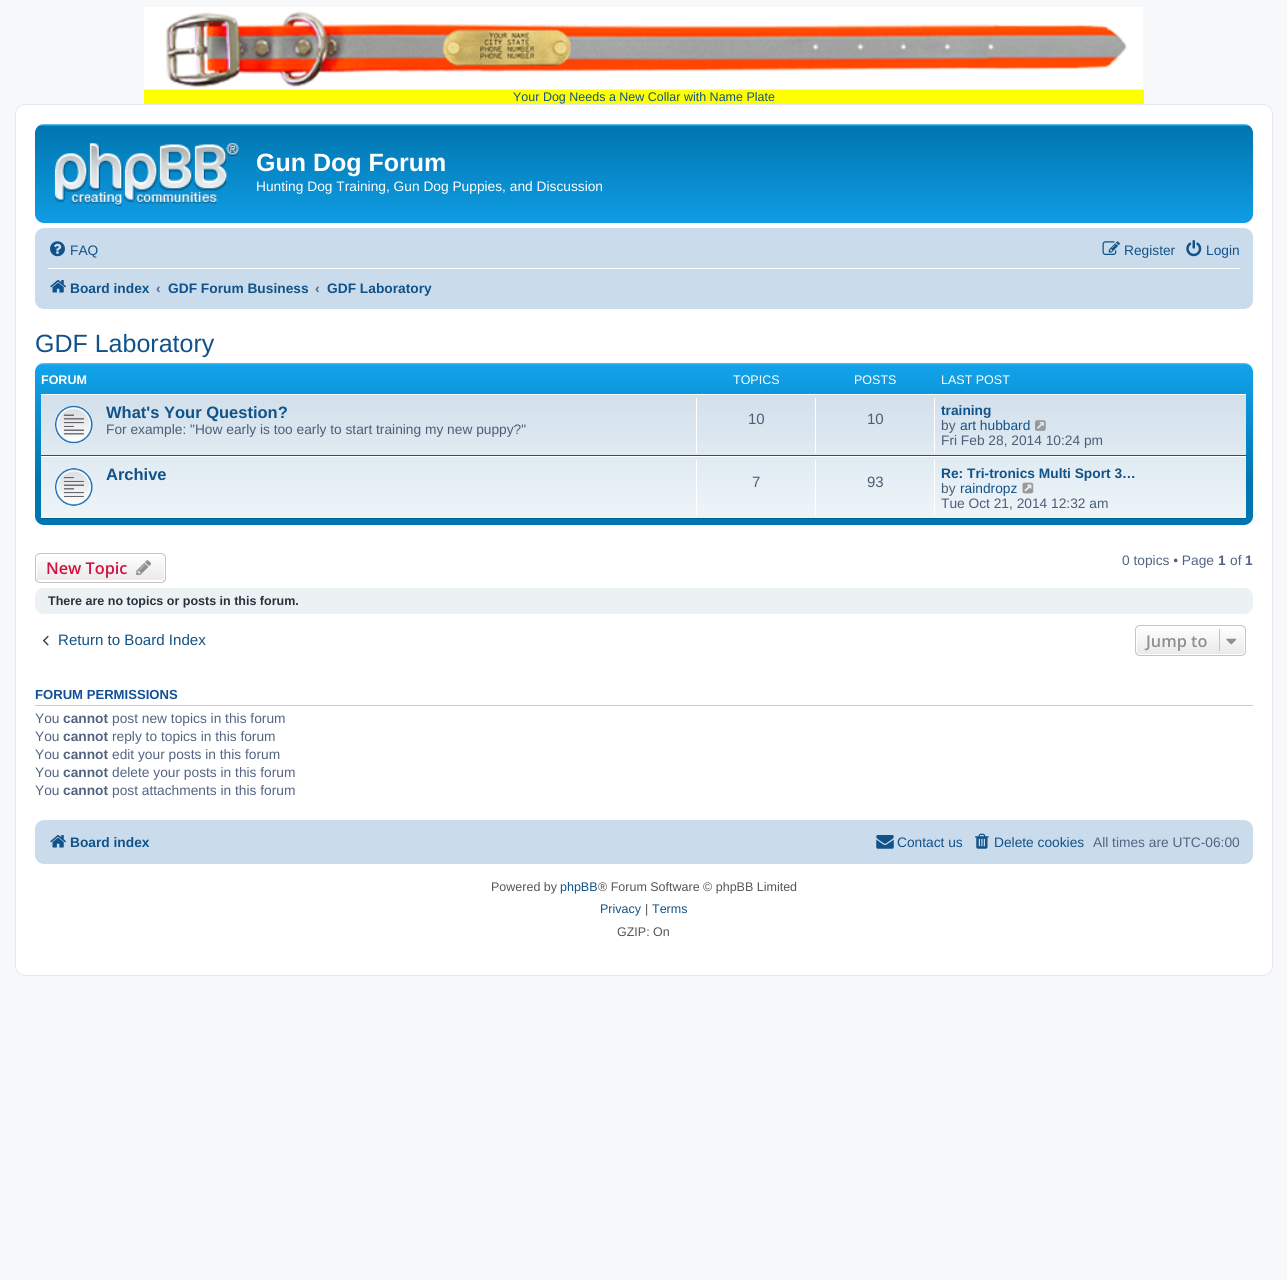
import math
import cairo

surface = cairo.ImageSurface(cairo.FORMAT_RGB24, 1287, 1280)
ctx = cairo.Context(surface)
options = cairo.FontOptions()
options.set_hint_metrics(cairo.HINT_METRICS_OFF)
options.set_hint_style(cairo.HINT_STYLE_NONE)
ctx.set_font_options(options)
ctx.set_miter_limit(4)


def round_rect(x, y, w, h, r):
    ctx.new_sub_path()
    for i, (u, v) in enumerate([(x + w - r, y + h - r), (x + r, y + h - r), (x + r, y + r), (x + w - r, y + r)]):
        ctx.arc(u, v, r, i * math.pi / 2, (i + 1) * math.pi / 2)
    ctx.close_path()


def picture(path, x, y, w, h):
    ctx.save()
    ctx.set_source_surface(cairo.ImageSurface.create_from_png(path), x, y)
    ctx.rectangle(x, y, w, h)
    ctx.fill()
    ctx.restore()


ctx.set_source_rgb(0.961, 0.969, 0.98)
ctx.paint()
ctx.set_source_rgb(1, 1, 0)
ctx.rectangle(144, 8, 1000, 96)
ctx.fill()
picture("img1.png", 144, 7, 1000, 83)
ctx.select_font_face("Liberation Sans")
ctx.set_font_size(12.5)
ctx.set_source_rgb(0.063, 0.322, 0.537)
ctx.move_to(513, 101)
ctx.show_text("Your Dog Needs a New Collar with Name Plate")
ctx.set_source_rgb(1, 1, 1)
round_rect(15.5, 104.5, 1257, 871, 9.5)
ctx.fill_preserve()
ctx.set_source_rgb(0.902, 0.914, 0.929)
ctx.set_line_width(1)
ctx.stroke()
gradient = cairo.LinearGradient(644, 124, 644, 239)
gradient.add_color_stop_rgba(0, 0.416, 0.808, 1, 1)
gradient.add_color_stop_rgba(0.02, 0, 0.463, 0.694, 1)
gradient.add_color_stop_rgba(1, 0.071, 0.639, 0.922, 1)
ctx.set_source(gradient)
round_rect(35, 124, 1218, 99, 9)
ctx.fill()
picture("img2.png", 54, 143, 185, 63)
ctx.select_font_face("Liberation Sans", cairo.FONT_SLANT_NORMAL, cairo.FONT_WEIGHT_BOLD)
ctx.set_font_size(25)
ctx.set_source_rgb(1, 1, 1)
ctx.move_to(256, 171)
ctx.show_text("Gun Dog Forum")
ctx.select_font_face("Liberation Sans")
ctx.set_font_size(13.75)
ctx.move_to(256, 191)
ctx.show_text("Hunting Dog Training, Gun Dog Puppies, and Discussion")
ctx.set_source_rgb(0.792, 0.863, 0.922)
round_rect(35, 228, 1218, 81, 9)
ctx.fill()
picture("img3.png", 50, 241, 15, 16)
ctx.set_source_rgb(0.063, 0.322, 0.537)
ctx.move_to(70, 255)
ctx.show_text("FAQ")
picture("img4.png", 1102, 241, 18, 14)
ctx.move_to(1124, 255)
ctx.show_text("Register")
picture("img5.png", 1186, 240, 16, 17)
ctx.move_to(1206, 255)
ctx.show_text("Login")
ctx.set_source_rgb(1, 1, 1)
ctx.rectangle(48, 268, 1192, 1)
ctx.fill()
picture("img6.png", 50, 280, 16, 13)
ctx.select_font_face("Liberation Sans", cairo.FONT_SLANT_NORMAL, cairo.FONT_WEIGHT_BOLD)
ctx.set_source_rgb(0.063, 0.322, 0.537)
ctx.move_to(70, 293)
ctx.show_text("Board index")
ctx.set_source_rgb(0.325, 0.392, 0.51)
ctx.move_to(156, 293)
ctx.show_text("‹")
ctx.set_source_rgb(0.063, 0.322, 0.537)
ctx.move_to(168, 293)
ctx.show_text("GDF Forum Business")
ctx.set_source_rgb(0.325, 0.392, 0.51)
ctx.move_to(315, 293)
ctx.show_text("‹")
ctx.set_source_rgb(0.063, 0.322, 0.537)
ctx.move_to(327, 293)
ctx.show_text("GDF Laboratory")
ctx.select_font_face("Liberation Sans")
ctx.set_font_size(25)
ctx.move_to(35, 352)
ctx.show_text("GDF Laboratory")
gradient = cairo.LinearGradient(644, 362, 644, 525)
gradient.add_color_stop_rgba(0, 0.416, 0.808, 1, 1)
gradient.add_color_stop_rgba(0.02, 0.071, 0.639, 0.922, 1)
gradient.add_color_stop_rgba(0.71, 0, 0.463, 0.694, 1)
gradient.add_color_stop_rgba(1, 0, 0.463, 0.694, 1)
ctx.set_source(gradient)
round_rect(35, 363, 1218, 162, 9)
ctx.fill()
ctx.select_font_face("Liberation Sans", cairo.FONT_SLANT_NORMAL, cairo.FONT_WEIGHT_BOLD)
ctx.set_font_size(12.5)
ctx.set_source_rgb(1, 1, 1)
ctx.move_to(41, 384)
ctx.show_text("FORUM")
ctx.select_font_face("Liberation Sans")
ctx.move_to(733, 384)
ctx.show_text("TOPICS")
ctx.move_to(854, 384)
ctx.show_text("POSTS")
ctx.move_to(941, 384)
ctx.show_text("LAST POST")
gradient = cairo.LinearGradient(644, 394, 644, 519)
gradient.add_color_stop_rgba(0, 0.824, 0.878, 0.922, 1)
gradient.add_color_stop_rgba(1, 0.933, 0.961, 0.976, 1)
ctx.set_source(gradient)
ctx.rectangle(41, 395, 1205, 123)
ctx.fill()
ctx.set_source_rgb(1, 1, 1)
ctx.rectangle(41, 394, 1205, 1)
ctx.fill()
ctx.set_source_rgb(0, 0.376, 0.561)
ctx.rectangle(41, 455, 1205, 1)
ctx.fill()
picture("img7.png", 55, 405, 38, 39)
ctx.select_font_face("Liberation Sans", cairo.FONT_SLANT_NORMAL, cairo.FONT_WEIGHT_BOLD)
ctx.set_font_size(16.5)
ctx.set_source_rgb(0.063, 0.322, 0.537)
ctx.move_to(106, 418)
ctx.show_text("What's Your Question?")
ctx.select_font_face("Liberation Sans")
ctx.set_font_size(13.75)
ctx.set_source_rgb(0.298, 0.365, 0.467)
ctx.move_to(106, 434)
ctx.show_text("For example: \"How early is too early to start training my new puppy?\"")
ctx.set_source_rgb(1, 1, 1)
ctx.rectangle(696, 398, 1, 55)
ctx.fill()
ctx.set_font_size(15)
ctx.set_source_rgb(0.298, 0.365, 0.467)
ctx.move_to(748, 424)
ctx.show_text("10")
ctx.set_source_rgb(1, 1, 1)
ctx.rectangle(815, 398, 1, 55)
ctx.fill()
ctx.set_source_rgb(0.298, 0.365, 0.467)
ctx.move_to(867, 424)
ctx.show_text("10")
ctx.set_source_rgb(1, 1, 1)
ctx.rectangle(934, 398, 1, 55)
ctx.fill()
ctx.select_font_face("Liberation Sans", cairo.FONT_SLANT_NORMAL, cairo.FONT_WEIGHT_BOLD)
ctx.set_font_size(13.75)
ctx.set_source_rgb(0.063, 0.322, 0.537)
ctx.move_to(941, 415)
ctx.show_text("training")
ctx.select_font_face("Liberation Sans")
ctx.set_source_rgb(0.298, 0.365, 0.467)
ctx.move_to(941, 430)
ctx.show_text("by")
ctx.set_source_rgb(0.063, 0.322, 0.537)
ctx.move_to(960, 430)
ctx.show_text("art hubbard")
picture("img8.png", 1035, 420, 11, 11)
ctx.set_source_rgb(0.298, 0.365, 0.467)
ctx.move_to(941, 445)
ctx.show_text("Fri Feb 28, 2014 10:24 pm")
ctx.set_source_rgb(1, 1, 1)
ctx.rectangle(41, 456, 1205, 1)
ctx.fill()
ctx.set_source_rgb(0, 0.376, 0.561)
ctx.rectangle(41, 518, 1205, 1)
ctx.fill()
picture("img9.png", 55, 468, 38, 38)
ctx.select_font_face("Liberation Sans", cairo.FONT_SLANT_NORMAL, cairo.FONT_WEIGHT_BOLD)
ctx.set_font_size(16.5)
ctx.set_source_rgb(0.063, 0.322, 0.537)
ctx.move_to(106, 480)
ctx.show_text("Archive")
ctx.set_source_rgb(1, 1, 1)
ctx.rectangle(696, 460, 1, 55)
ctx.fill()
ctx.select_font_face("Liberation Sans")
ctx.set_font_size(15)
ctx.set_source_rgb(0.298, 0.365, 0.467)
ctx.move_to(752, 487)
ctx.show_text("7")
ctx.set_source_rgb(1, 1, 1)
ctx.rectangle(815, 460, 1, 55)
ctx.fill()
ctx.set_source_rgb(0.298, 0.365, 0.467)
ctx.move_to(867, 487)
ctx.show_text("93")
ctx.set_source_rgb(1, 1, 1)
ctx.rectangle(934, 460, 1, 55)
ctx.fill()
ctx.select_font_face("Liberation Sans", cairo.FONT_SLANT_NORMAL, cairo.FONT_WEIGHT_BOLD)
ctx.set_font_size(13.75)
ctx.set_source_rgb(0.063, 0.322, 0.537)
ctx.move_to(941, 478)
ctx.show_text("Re: Tri-tronics Multi Sport 3…")
ctx.select_font_face("Liberation Sans")
ctx.set_source_rgb(0.298, 0.365, 0.467)
ctx.move_to(941, 493)
ctx.show_text("by")
ctx.set_source_rgb(0.063, 0.322, 0.537)
ctx.move_to(960, 493)
ctx.show_text("raindropz")
picture("img10.png", 1022, 482, 12, 12)
ctx.set_source_rgb(0.298, 0.365, 0.467)
ctx.move_to(941, 508)
ctx.show_text("Tue Oct 21, 2014 12:32 am")
ctx.save()
round_rect(35, 553, 131, 30, 5)
ctx.clip()
gradient = cairo.LinearGradient(101, 554, 101, 581)
gradient.add_color_stop_rgba(0, 1, 1, 1, 1)
gradient.add_color_stop_rgba(1, 0.914, 0.914, 0.914, 1)
ctx.set_source(gradient)
ctx.rectangle(35, 554, 131, 27)
ctx.fill()
ctx.restore()
round_rect(36.5, 554.5, 128, 26, 3.5)
ctx.set_source_rgb(1, 1, 1)
ctx.stroke()
round_rect(35.5, 553.5, 130, 29, 4.5)
ctx.set_source_rgb(0.78, 0.765, 0.749)
ctx.stroke()
ctx.select_font_face("Open Sans SemiBold")
ctx.set_font_size(16.25)
ctx.set_source_rgb(0.827, 0.067, 0.255)
ctx.move_to(46, 574)
ctx.show_text("New Topic")
picture("img11.png", 136, 560, 15, 15)
ctx.select_font_face("Liberation Sans")
ctx.set_font_size(13.75)
ctx.set_source_rgb(0.325, 0.392, 0.51)
ctx.move_to(1122, 565)
ctx.show_text("0 topics • Page")
ctx.select_font_face("Liberation Sans", cairo.FONT_SLANT_NORMAL, cairo.FONT_WEIGHT_BOLD)
ctx.move_to(1218, 565)
ctx.show_text("1")
ctx.select_font_face("Liberation Sans")
ctx.move_to(1230, 565)
ctx.show_text("of")
ctx.select_font_face("Liberation Sans", cairo.FONT_SLANT_NORMAL, cairo.FONT_WEIGHT_BOLD)
ctx.move_to(1245, 565)
ctx.show_text("1")
ctx.set_source_rgb(0.925, 0.945, 0.953)
round_rect(35, 588, 1218, 26, 9)
ctx.fill()
ctx.set_font_size(12.5)
ctx.set_source_rgb(0.157, 0.192, 0.247)
ctx.move_to(48, 605)
ctx.show_text("There are no topics or posts in this forum.")
picture("img12.png", 43, 635, 6, 11)
ctx.select_font_face("Liberation Sans")
ctx.set_font_size(15.1)
ctx.set_source_rgb(0.063, 0.322, 0.537)
ctx.move_to(58, 645)
ctx.show_text("Return to Board Index")
ctx.save()
round_rect(1135, 625, 111, 31, 5)
ctx.clip()
gradient = cairo.LinearGradient(1191, 626, 1191, 655)
gradient.add_color_stop_rgba(0, 1, 1, 1, 1)
gradient.add_color_stop_rgba(1, 0.914, 0.914, 0.914, 1)
ctx.set_source(gradient)
ctx.rectangle(1135, 626, 111, 29)
ctx.fill()
ctx.restore()
round_rect(1136.5, 626.5, 108, 28, 3.5)
ctx.set_source_rgb(1, 1, 1)
ctx.stroke()
round_rect(1135.5, 625.5, 110, 30, 4.5)
ctx.set_source_rgb(0.78, 0.765, 0.749)
ctx.stroke()
ctx.select_font_face("Open Sans SemiBold")
ctx.set_font_size(16.25)
ctx.set_source_rgb(0.561, 0.561, 0.561)
ctx.move_to(1146, 647)
ctx.show_text("Jump to")
ctx.set_source_rgb(0.78, 0.765, 0.749)
ctx.rectangle(1219, 629, 1, 22)
ctx.fill()
picture("img13.png", 1226, 638, 11, 7)
ctx.set_source_rgb(0.8, 0.8, 0.8)
ctx.rectangle(35, 705, 1218, 1)
ctx.fill()
ctx.select_font_face("Liberation Sans", cairo.FONT_SLANT_NORMAL, cairo.FONT_WEIGHT_BOLD)
ctx.set_font_size(13.1)
ctx.set_source_rgb(0.067, 0.314, 0.596)
ctx.move_to(35, 699)
ctx.show_text("FORUM PERMISSIONS")
ctx.select_font_face("Liberation Sans")
ctx.set_font_size(13.75)
ctx.set_source_rgb(0.325, 0.392, 0.51)
ctx.move_to(35, 723)
ctx.show_text("You")
ctx.select_font_face("Liberation Sans", cairo.FONT_SLANT_NORMAL, cairo.FONT_WEIGHT_BOLD)
ctx.move_to(63, 723)
ctx.show_text("cannot")
ctx.select_font_face("Liberation Sans")
ctx.move_to(112, 723)
ctx.show_text("post new topics in this forum")
ctx.move_to(35, 741)
ctx.show_text("You")
ctx.select_font_face("Liberation Sans", cairo.FONT_SLANT_NORMAL, cairo.FONT_WEIGHT_BOLD)
ctx.move_to(63, 741)
ctx.show_text("cannot")
ctx.select_font_face("Liberation Sans")
ctx.move_to(112, 741)
ctx.show_text("reply to topics in this forum")
ctx.move_to(35, 759)
ctx.show_text("You")
ctx.select_font_face("Liberation Sans", cairo.FONT_SLANT_NORMAL, cairo.FONT_WEIGHT_BOLD)
ctx.move_to(63, 759)
ctx.show_text("cannot")
ctx.select_font_face("Liberation Sans")
ctx.move_to(112, 759)
ctx.show_text("edit your posts in this forum")
ctx.move_to(35, 777)
ctx.show_text("You")
ctx.select_font_face("Liberation Sans", cairo.FONT_SLANT_NORMAL, cairo.FONT_WEIGHT_BOLD)
ctx.move_to(63, 777)
ctx.show_text("cannot")
ctx.select_font_face("Liberation Sans")
ctx.move_to(112, 777)
ctx.show_text("delete your posts in this forum")
ctx.move_to(35, 795)
ctx.show_text("You")
ctx.select_font_face("Liberation Sans", cairo.FONT_SLANT_NORMAL, cairo.FONT_WEIGHT_BOLD)
ctx.move_to(63, 795)
ctx.show_text("cannot")
ctx.select_font_face("Liberation Sans")
ctx.move_to(112, 795)
ctx.show_text("post attachments in this forum")
ctx.set_source_rgb(0.792, 0.863, 0.922)
round_rect(35, 820, 1218, 44, 9)
ctx.fill()
picture("img6.png", 50, 835, 16, 13)
ctx.select_font_face("Liberation Sans", cairo.FONT_SLANT_NORMAL, cairo.FONT_WEIGHT_BOLD)
ctx.set_source_rgb(0.063, 0.322, 0.537)
ctx.move_to(70, 847)
ctx.show_text("Board index")
picture("img14.png", 876, 835, 18, 14)
ctx.select_font_face("Liberation Sans")
ctx.move_to(897, 847)
ctx.show_text("Contact us")
picture("img15.png", 975, 833, 14, 16)
ctx.move_to(994, 847)
ctx.show_text("Delete cookies")
ctx.set_source_rgb(0.325, 0.392, 0.51)
ctx.move_to(1093, 847)
ctx.show_text("All times are UTC-06:00")
ctx.set_font_size(12.5)
ctx.set_source_rgb(0.333, 0.333, 0.333)
ctx.move_to(491, 891)
ctx.show_text("Powered by")
ctx.set_source_rgb(0.063, 0.322, 0.537)
ctx.move_to(560, 891)
ctx.show_text("phpBB")
ctx.set_source_rgb(0.333, 0.333, 0.333)
ctx.move_to(598, 891)
ctx.show_text("® Forum Software © phpBB Limited")
ctx.set_source_rgb(0.063, 0.322, 0.537)
ctx.move_to(600, 913)
ctx.show_text("Privacy")
ctx.set_source_rgb(0.333, 0.333, 0.333)
ctx.move_to(645, 913)
ctx.show_text("|")
ctx.set_source_rgb(0.063, 0.322, 0.537)
ctx.move_to(652, 913)
ctx.show_text("Terms")
ctx.set_source_rgb(0.333, 0.333, 0.333)
ctx.move_to(617, 936)
ctx.show_text("GZIP: On")
surface.write_to_png("page.png")
